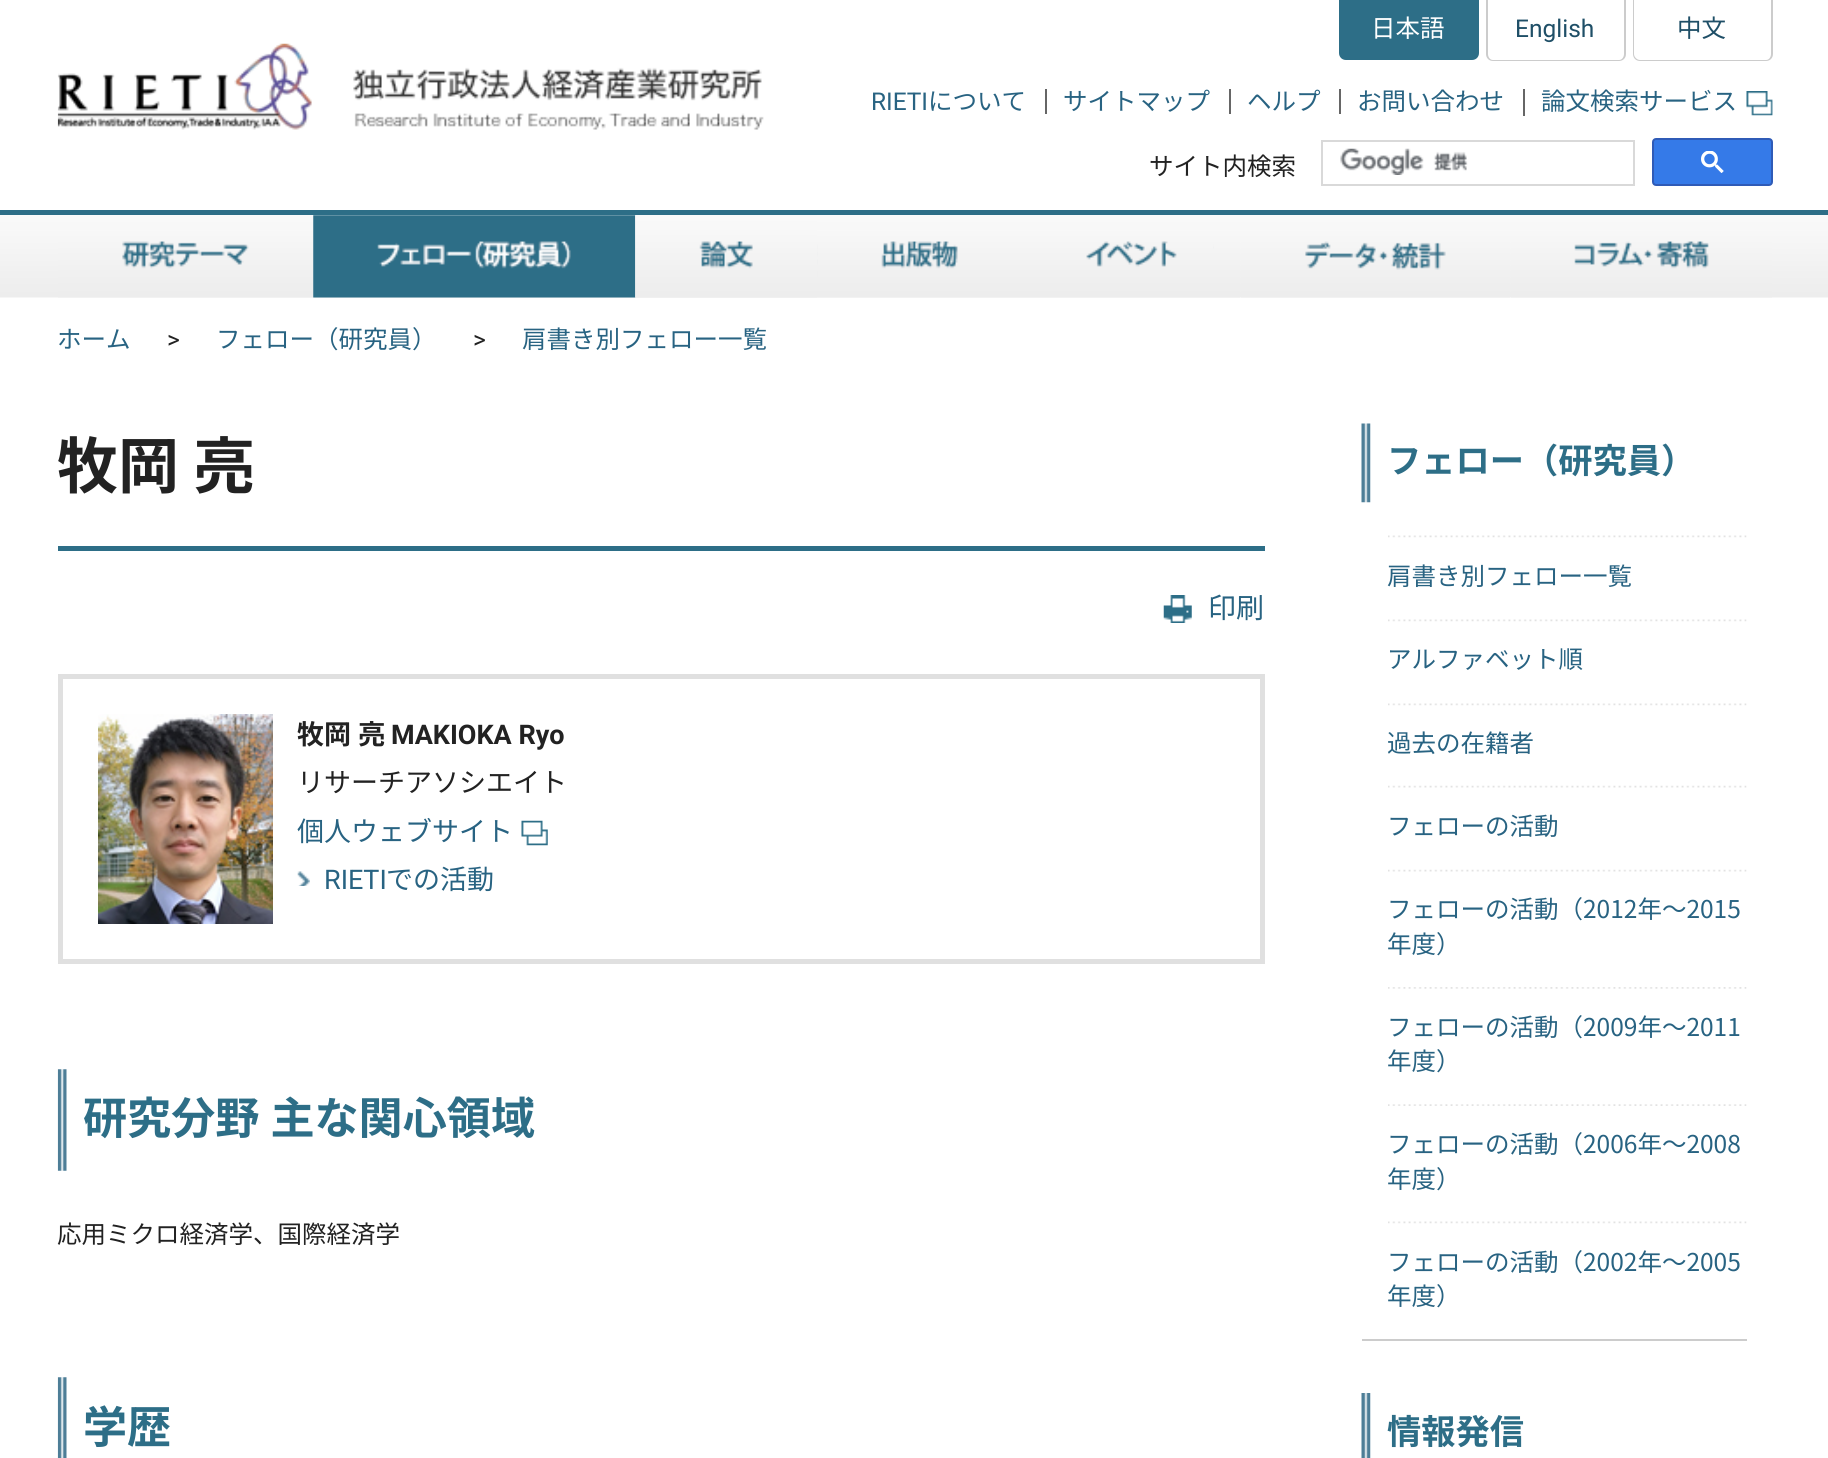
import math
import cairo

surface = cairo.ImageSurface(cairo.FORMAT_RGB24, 1828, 1458)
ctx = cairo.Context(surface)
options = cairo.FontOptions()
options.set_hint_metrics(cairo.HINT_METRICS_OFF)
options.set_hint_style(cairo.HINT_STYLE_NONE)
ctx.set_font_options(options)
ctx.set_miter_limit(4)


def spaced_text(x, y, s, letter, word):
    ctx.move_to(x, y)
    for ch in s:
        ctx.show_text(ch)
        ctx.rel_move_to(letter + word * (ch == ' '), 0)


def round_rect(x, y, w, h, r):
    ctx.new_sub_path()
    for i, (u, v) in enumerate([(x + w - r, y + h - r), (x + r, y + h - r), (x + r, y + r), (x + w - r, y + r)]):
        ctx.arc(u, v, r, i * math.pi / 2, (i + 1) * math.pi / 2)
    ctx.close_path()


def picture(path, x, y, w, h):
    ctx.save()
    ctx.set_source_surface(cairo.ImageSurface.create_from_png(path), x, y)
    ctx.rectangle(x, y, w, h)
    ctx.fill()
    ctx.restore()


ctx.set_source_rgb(1, 1, 1)
ctx.paint()
picture("img1.png", 57, 43, 707, 87)
ctx.set_source_rgb(0.176, 0.431, 0.529)
ctx.new_path()
ctx.move_to(1339, 0)
ctx.line_to(1479, 0)
ctx.line_to(1479, 53)
ctx.curve_to(1479, 57, 1476, 60, 1472, 60)
ctx.line_to(1346, 60)
ctx.curve_to(1342, 60, 1339, 57, 1339, 53)
ctx.close_path()
ctx.fill()
ctx.select_font_face("Noto Sans JP")
ctx.set_font_size(24.5)
ctx.set_source_rgb(1, 1, 1)
ctx.move_to(1371, 37)
ctx.show_text("日本語")
ctx.set_source_rgb(0.8, 0.8, 0.8)
ctx.set_fill_rule(cairo.FILL_RULE_EVEN_ODD)
ctx.new_path()
ctx.move_to(1486, 0)
ctx.line_to(1626, 0)
ctx.line_to(1626, 54)
ctx.curve_to(1626, 58, 1623, 61, 1619, 61)
ctx.line_to(1493, 61)
ctx.curve_to(1489, 61, 1486, 58, 1486, 54)
ctx.close_path()
ctx.move_to(1488, 0)
ctx.line_to(1624, 0)
ctx.line_to(1624, 54)
ctx.curve_to(1624, 57, 1622, 60, 1619, 60)
ctx.line_to(1493, 60)
ctx.curve_to(1490, 60, 1488, 57, 1488, 54)
ctx.close_path()
ctx.fill()
ctx.select_font_face("Roboto")
ctx.set_source_rgb(0.122, 0.31, 0.404)
ctx.move_to(1515, 37)
ctx.show_text("English")
ctx.set_source_rgb(0.8, 0.8, 0.8)
ctx.new_path()
ctx.move_to(1633, 0)
ctx.line_to(1773, 0)
ctx.line_to(1773, 54)
ctx.curve_to(1773, 58, 1770, 61, 1766, 61)
ctx.line_to(1640, 61)
ctx.curve_to(1636, 61, 1633, 58, 1633, 54)
ctx.close_path()
ctx.move_to(1634, 0)
ctx.line_to(1771, 0)
ctx.line_to(1771, 54)
ctx.curve_to(1771, 57, 1769, 60, 1766, 60)
ctx.line_to(1640, 60)
ctx.curve_to(1637, 60, 1634, 57, 1634, 54)
ctx.close_path()
ctx.fill()
ctx.select_font_face("Noto Sans JP")
ctx.set_source_rgb(0.122, 0.31, 0.404)
ctx.move_to(1677, 37)
ctx.show_text("中文")
ctx.select_font_face("Roboto")
ctx.set_source_rgb(0.157, 0.388, 0.51)
ctx.move_to(871, 110)
ctx.show_text("RIETI")
ctx.select_font_face("Noto Sans JP")
ctx.move_to(928, 110)
ctx.show_text("について")
ctx.set_source_rgb(0.4, 0.4, 0.4)
ctx.rectangle(1045, 89, 2, 25)
ctx.fill()
ctx.set_source_rgb(0.157, 0.388, 0.51)
ctx.move_to(1063, 110)
ctx.show_text("サイトマップ")
ctx.set_source_rgb(0.4, 0.4, 0.4)
ctx.rectangle(1229, 89, 2, 25)
ctx.fill()
ctx.set_source_rgb(0.157, 0.388, 0.51)
ctx.move_to(1247, 110)
ctx.show_text("ヘルプ")
ctx.set_source_rgb(0.4, 0.4, 0.4)
ctx.rectangle(1339, 89, 2, 25)
ctx.fill()
ctx.set_source_rgb(0.157, 0.388, 0.51)
ctx.move_to(1357, 110)
ctx.show_text("お問い合わせ")
ctx.set_source_rgb(0.4, 0.4, 0.4)
ctx.rectangle(1523, 89, 2, 27)
ctx.fill()
ctx.set_source_rgb(0.157, 0.388, 0.51)
ctx.move_to(1541, 110)
ctx.show_text("論文検索サービス")
picture("img2.png", 1746, 91, 27, 25)
ctx.set_source_rgb(0.133, 0.133, 0.133)
ctx.move_to(1149, 175)
ctx.show_text("サイト内検索")
ctx.rectangle(1322, 141, 312, 44)
ctx.set_source_rgb(0.851, 0.851, 0.851)
ctx.stroke()
picture("img3.png", 1340, 148, 128, 27)
ctx.set_source_rgb(0.208, 0.478, 0.91)
round_rect(1653, 139, 119, 46, 3)
ctx.fill_preserve()
ctx.set_source_rgb(0.184, 0.357, 0.718)
ctx.stroke()
picture("img4.png", 1701, 151, 23, 22)
picture("img5.png", 0, 215, 1828, 83)
ctx.set_source_rgb(0.176, 0.431, 0.529)
ctx.rectangle(0, 210, 1828, 5)
ctx.fill()
picture("img6.png", 58, 241, 255, 57)
picture("img7.png", 314, 241, 322, 57)
picture("img9.png", 635, 241, 183, 57)
picture("img8.png", 313, 215, 323, 83)
picture("img10.png", 635, 215, 182, 83)
picture("img11.png", 817, 241, 205, 57)
picture("img12.png", 817, 241, 192, 28)
picture("img13.png", 1022, 241, 218, 57)
picture("img14.png", 1086, 241, 127, 28)
picture("img15.png", 1241, 241, 269, 57)
picture("img16.png", 1305, 241, 141, 29)
picture("img17.png", 1511, 241, 261, 57)
picture("img18.png", 1574, 241, 135, 28)
ctx.set_source_rgb(0.157, 0.388, 0.51)
ctx.move_to(57, 348)
ctx.show_text("ホーム")
ctx.select_font_face("Roboto")
ctx.set_source_rgb(0.133, 0.133, 0.133)
ctx.move_to(167, 348)
ctx.show_text(">")
ctx.select_font_face("Noto Sans JP")
ctx.set_source_rgb(0.157, 0.388, 0.51)
ctx.move_to(216, 348)
ctx.show_text("フェロー（研究員）")
ctx.select_font_face("Roboto")
ctx.set_source_rgb(0.133, 0.133, 0.133)
ctx.move_to(473, 348)
ctx.show_text(">")
ctx.select_font_face("Noto Sans JP")
ctx.set_source_rgb(0.157, 0.388, 0.51)
ctx.move_to(522, 348)
ctx.show_text("肩書き別フェロー一覧")
ctx.set_source_rgb(0.176, 0.431, 0.529)
ctx.rectangle(58, 546, 1207, 5)
ctx.fill()
ctx.select_font_face("Noto Sans JP", cairo.FONT_SLANT_NORMAL, cairo.FONT_WEIGHT_BOLD)
ctx.set_font_size(61)
ctx.set_source_rgb(0.133, 0.133, 0.133)
spaced_text(57, 488, "牧岡 亮", 0, 1)
picture("img19.png", 1163, 595, 29, 28)
ctx.select_font_face("Noto Sans JP")
ctx.set_font_size(28)
ctx.set_source_rgb(0.157, 0.388, 0.51)
ctx.move_to(1208, 618)
ctx.show_text("印刷")
ctx.rectangle(60.5, 676.5, 1202, 285)
ctx.set_source_rgb(0.878, 0.878, 0.878)
ctx.set_line_width(5)
ctx.stroke()
picture("img20.png", 98, 714, 175, 210)
ctx.select_font_face("Noto Sans JP", cairo.FONT_SLANT_NORMAL, cairo.FONT_WEIGHT_BOLD)
ctx.set_font_size(27)
ctx.set_source_rgb(0.133, 0.133, 0.133)
spaced_text(297, 744, "牧岡 亮", 0, 1)
ctx.select_font_face("Roboto", cairo.FONT_SLANT_NORMAL, cairo.FONT_WEIGHT_BOLD)
ctx.move_to(391, 744)
ctx.show_text("MAKIOKA Ryo")
ctx.select_font_face("Noto Sans JP")
ctx.move_to(297, 792)
ctx.show_text("リサーチアソシエイト")
ctx.set_source_rgb(0.157, 0.388, 0.51)
ctx.move_to(297, 841)
ctx.show_text("個人ウェブサイト")
picture("img21.png", 521, 820, 27, 26)
picture("img22.png", 297, 871, 13, 15)
ctx.select_font_face("Roboto")
ctx.move_to(324, 889)
ctx.show_text("RIETI")
ctx.select_font_face("Noto Sans JP")
ctx.move_to(386, 889)
ctx.show_text("での活動")
picture("img23.png", 57, 1069, 10, 102)
ctx.select_font_face("Noto Sans JP", cairo.FONT_SLANT_NORMAL, cairo.FONT_WEIGHT_BOLD)
ctx.set_font_size(44.1)
ctx.set_source_rgb(0.176, 0.431, 0.529)
spaced_text(83, 1134, "研究分野 主な関心領域", 0, 1)
ctx.select_font_face("Noto Sans JP")
ctx.set_font_size(24.5)
ctx.set_source_rgb(0.133, 0.133, 0.133)
ctx.move_to(57, 1243)
ctx.show_text("応用ミクロ経済学、国際経済学")
picture("img24.png", 57, 1377, 10, 81)
ctx.select_font_face("Noto Sans JP", cairo.FONT_SLANT_NORMAL, cairo.FONT_WEIGHT_BOLD)
ctx.set_font_size(44.1)
ctx.set_source_rgb(0.176, 0.431, 0.529)
ctx.move_to(83, 1443)
ctx.show_text("学歴")
picture("img25.png", 1361, 423, 10, 80)
ctx.set_font_size(34.25)
ctx.move_to(1387, 473)
ctx.show_text("フェロー（研究員）")
ctx.set_source_rgb(0.8, 0.8, 0.8)
ctx.rectangle(1362, 1339, 385, 2)
ctx.fill()
picture("img26.png", 1388, 535, 359, 3)
ctx.select_font_face("Noto Sans JP")
ctx.set_font_size(24.5)
ctx.set_source_rgb(0.157, 0.388, 0.51)
ctx.move_to(1387, 585)
ctx.show_text("肩書き別フェロー一覧")
picture("img26.png", 1388, 619, 359, 3)
ctx.move_to(1387, 668)
ctx.show_text("アルファベット順")
picture("img26.png", 1388, 703, 359, 3)
ctx.move_to(1387, 752)
ctx.show_text("過去の在籍者")
picture("img27.png", 1388, 785, 359, 3)
ctx.move_to(1387, 835)
ctx.show_text("フェローの活動")
picture("img27.png", 1388, 869, 359, 3)
ctx.move_to(1387, 918)
ctx.show_text("フェローの活動（2012年～2015")
ctx.move_to(1387, 953)
ctx.show_text("年度）")
picture("img28.png", 1388, 987, 359, 2)
ctx.move_to(1387, 1036)
ctx.show_text("フェローの活動（2009年～2011")
ctx.move_to(1387, 1070)
ctx.show_text("年度）")
picture("img29.png", 1388, 1104, 359, 2)
ctx.move_to(1387, 1153)
ctx.show_text("フェローの活動（2006年～2008")
ctx.move_to(1387, 1188)
ctx.show_text("年度）")
picture("img26.png", 1388, 1221, 359, 3)
ctx.move_to(1387, 1271)
ctx.show_text("フェローの活動（2002年〜2005")
ctx.move_to(1387, 1305)
ctx.show_text("年度）")
picture("img30.png", 1361, 1393, 10, 65)
ctx.select_font_face("Noto Sans JP", cairo.FONT_SLANT_NORMAL, cairo.FONT_WEIGHT_BOLD)
ctx.set_font_size(34.25)
ctx.set_source_rgb(0.176, 0.431, 0.529)
ctx.move_to(1387, 1444)
ctx.show_text("情報発信")
surface.write_to_png("page.png")
